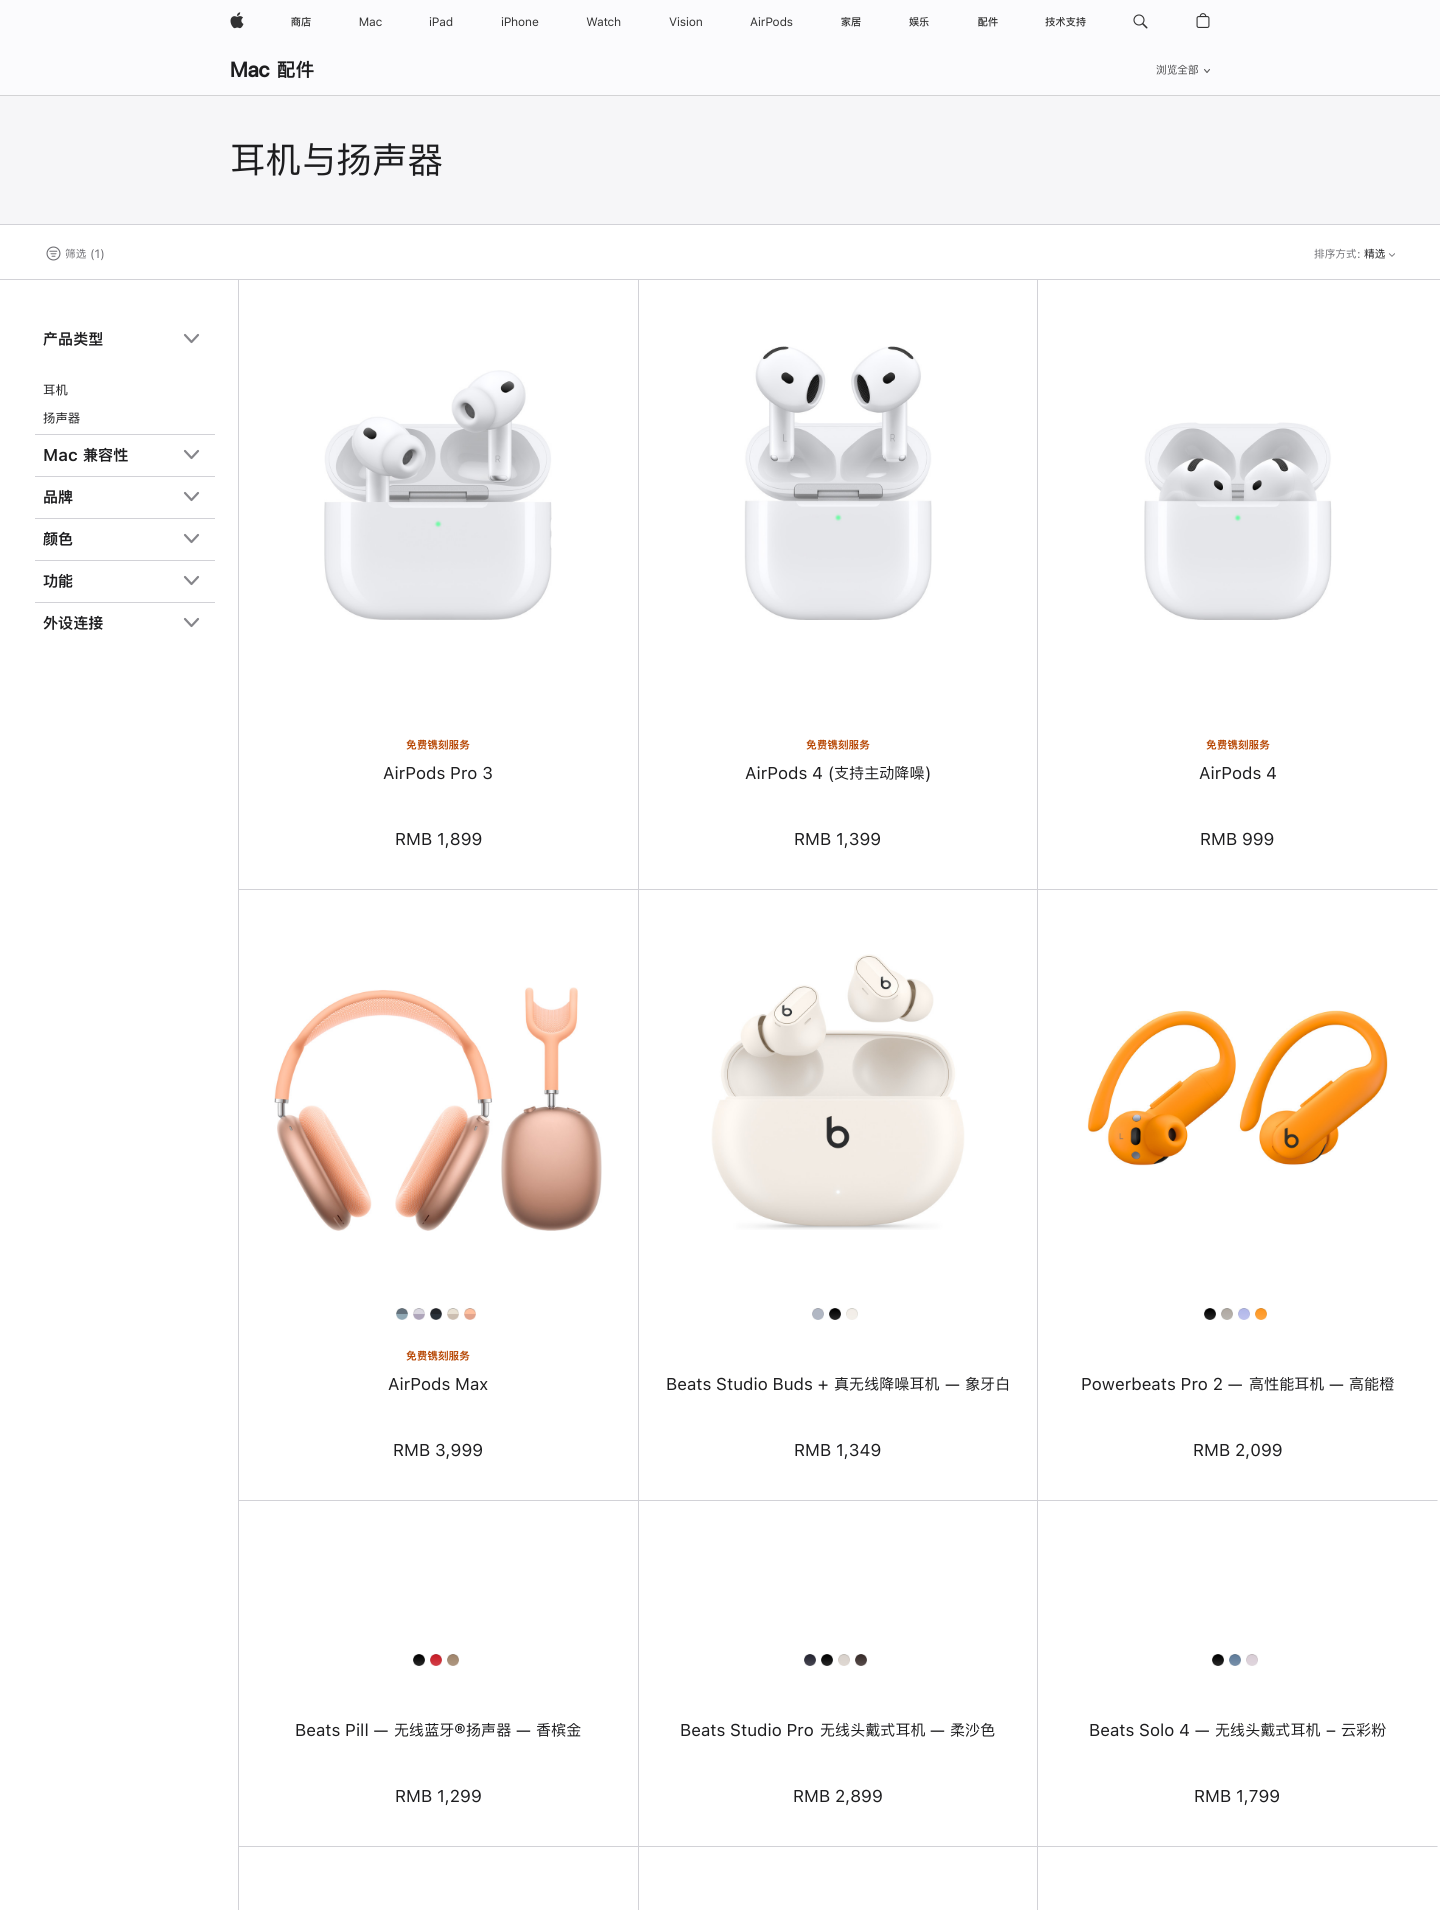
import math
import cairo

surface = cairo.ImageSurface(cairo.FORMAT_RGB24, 1440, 1910)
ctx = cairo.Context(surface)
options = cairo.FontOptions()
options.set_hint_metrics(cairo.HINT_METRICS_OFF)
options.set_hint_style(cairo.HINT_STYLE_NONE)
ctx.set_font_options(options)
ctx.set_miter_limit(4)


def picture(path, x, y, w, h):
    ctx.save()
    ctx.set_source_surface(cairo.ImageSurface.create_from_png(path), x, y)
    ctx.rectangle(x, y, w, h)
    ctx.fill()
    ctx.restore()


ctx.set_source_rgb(1, 1, 1)
ctx.paint()
ctx.set_source_rgb(0.984, 0.984, 0.992)
ctx.rectangle(0, 0, 1440, 95)
ctx.fill()
picture("img1.png", 230, 12, 14, 17)
picture("img2.png", 291, 16, 20, 11)
picture("img3.png", 359, 17, 23, 10)
picture("img4.png", 429, 17, 24, 10)
picture("img5.png", 501, 17, 38, 10)
picture("img6.png", 586, 17, 35, 10)
picture("img7.png", 669, 17, 33, 10)
picture("img8.png", 750, 17, 43, 10)
picture("img9.png", 841, 17, 20, 10)
picture("img10.png", 909, 17, 20, 10)
picture("img11.png", 978, 17, 20, 10)
picture("img12.png", 1045, 17, 41, 10)
picture("img13.png", 1133, 14, 15, 15)
picture("img14.png", 1196, 13, 14, 15)
ctx.set_source_rgb(0.827, 0.827, 0.835)
ctx.rectangle(0, 95, 1440, 1)
ctx.fill()
ctx.select_font_face("SF Pro Display", cairo.FONT_SLANT_NORMAL, cairo.FONT_WEIGHT_BOLD)
ctx.set_font_size(21)
ctx.set_source_rgb(0.114, 0.114, 0.122)
ctx.move_to(230, 77)
ctx.show_text("Mac")
ctx.select_font_face("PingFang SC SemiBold")
ctx.move_to(277, 77)
ctx.show_text("配件")
ctx.select_font_face("PingFang SC")
ctx.set_font_size(12)
ctx.set_source_rgb(0.286, 0.286, 0.294)
ctx.move_to(1156, 74)
ctx.show_text("浏览全部")
ctx.new_path()
ctx.move_to(1209.5, 69.5)
ctx.line_to(1207, 72.5)
ctx.line_to(1204.5, 69.5)
ctx.set_source_rgb(0.353, 0.353, 0.357)
ctx.set_line_width(1.1)
ctx.set_line_cap(cairo.LINE_CAP_ROUND)
ctx.set_line_join(cairo.LINE_JOIN_ROUND)
ctx.stroke()
ctx.set_source_rgb(0.961, 0.961, 0.969)
ctx.rectangle(0, 96, 1440, 128)
ctx.fill()
ctx.set_source_rgb(0.824, 0.824, 0.843)
ctx.rectangle(0, 224, 1440, 1)
ctx.fill()
ctx.set_font_size(40)
ctx.set_source_rgb(0.114, 0.114, 0.122)
ctx.move_to(230, 174)
ctx.show_text("耳机与扬声器")
picture("img15.png", 46, 246, 15, 15)
ctx.set_font_size(12)
ctx.set_source_rgb(0.431, 0.431, 0.451)
ctx.move_to(65, 258)
ctx.show_text("筛选")
ctx.select_font_face("SF Pro Text")
ctx.move_to(90, 258)
ctx.show_text("(1)")
ctx.select_font_face("PingFang SC")
ctx.move_to(1314, 258)
ctx.show_text("排序方式")
ctx.select_font_face("SF Pro Text")
ctx.move_to(1357, 258)
ctx.show_text(":")
ctx.select_font_face("PingFang SC")
ctx.set_source_rgb(0.114, 0.114, 0.122)
ctx.move_to(1364, 258)
ctx.show_text("精选")
picture("img16.png", 1388, 253, 7, 4)
ctx.set_source_rgb(0.824, 0.824, 0.843)
ctx.rectangle(238, 279, 1, 1631)
ctx.fill()
ctx.rectangle(638, 279, 1, 1631)
ctx.fill()
ctx.rectangle(1037, 279, 1, 1631)
ctx.fill()
ctx.rectangle(0, 279, 1440, 1)
ctx.fill()
ctx.select_font_face("PingFang SC SemiBold")
ctx.set_font_size(17)
ctx.set_source_rgb(0.114, 0.114, 0.122)
ctx.move_to(43, 345)
ctx.show_text("产品类型")
ctx.new_path()
ctx.move_to(198, 335)
ctx.line_to(191.5, 342)
ctx.line_to(185, 335)
ctx.set_source_rgb(0.525, 0.525, 0.545)
ctx.set_line_width(2.2)
ctx.stroke()
ctx.select_font_face("PingFang SC")
ctx.set_font_size(14)
ctx.set_source_rgb(0.114, 0.114, 0.122)
ctx.move_to(43, 395)
ctx.show_text("耳机")
ctx.move_to(43, 423)
ctx.show_text("扬声器")
ctx.set_source_rgb(0.824, 0.824, 0.843)
ctx.rectangle(35, 434, 180, 1)
ctx.fill()
ctx.select_font_face("SF Pro Text SemiBold")
ctx.set_font_size(17)
ctx.set_source_rgb(0.114, 0.114, 0.122)
ctx.move_to(43, 461)
ctx.show_text("Mac")
ctx.select_font_face("PingFang SC SemiBold")
ctx.move_to(83, 461)
ctx.show_text("兼容性")
ctx.set_source_rgb(0.824, 0.824, 0.843)
ctx.rectangle(35, 476, 180, 1)
ctx.fill()
ctx.new_path()
ctx.move_to(198, 451)
ctx.line_to(191.5, 458)
ctx.line_to(185, 451)
ctx.move_to(198, 493)
ctx.line_to(191.5, 500)
ctx.line_to(185, 493)
ctx.set_source_rgb(0.525, 0.525, 0.545)
ctx.stroke()
ctx.set_source_rgb(0.114, 0.114, 0.122)
ctx.move_to(43, 503)
ctx.show_text("品牌")
ctx.set_source_rgb(0.824, 0.824, 0.843)
ctx.rectangle(35, 518, 180, 1)
ctx.fill()
ctx.set_source_rgb(0.114, 0.114, 0.122)
ctx.move_to(43, 545)
ctx.show_text("颜色")
ctx.set_source_rgb(0.824, 0.824, 0.843)
ctx.rectangle(35, 560, 180, 1)
ctx.fill()
ctx.new_path()
ctx.move_to(198, 535)
ctx.line_to(191.5, 542)
ctx.line_to(185, 535)
ctx.move_to(198, 577)
ctx.line_to(191.5, 584)
ctx.line_to(185, 577)
ctx.set_source_rgb(0.525, 0.525, 0.545)
ctx.stroke()
ctx.set_source_rgb(0.114, 0.114, 0.122)
ctx.move_to(43, 587)
ctx.show_text("功能")
ctx.set_source_rgb(0.824, 0.824, 0.843)
ctx.rectangle(35, 602, 180, 1)
ctx.fill()
ctx.set_source_rgb(0.114, 0.114, 0.122)
ctx.move_to(43, 629)
ctx.show_text("外设连接")
ctx.new_path()
ctx.move_to(198, 619)
ctx.line_to(191.5, 626)
ctx.line_to(185, 619)
ctx.set_source_rgb(0.525, 0.525, 0.545)
ctx.stroke()
ctx.set_source_rgb(0.824, 0.824, 0.843)
ctx.rectangle(239, 889, 400, 1)
ctx.fill()
picture("img17.png", 324, 370, 228, 250)
ctx.set_font_size(12)
ctx.set_source_rgb(0.714, 0.267, 0)
ctx.move_to(406, 749)
ctx.show_text("免费镌刻服务")
ctx.select_font_face("SF Pro Text")
ctx.set_font_size(17)
ctx.set_source_rgb(0.114, 0.114, 0.122)
ctx.move_to(383, 779)
ctx.show_text("AirPods Pro 3")
ctx.move_to(395, 845)
ctx.show_text("RMB 1,899")
ctx.set_source_rgb(0.824, 0.824, 0.843)
ctx.rectangle(639, 889, 399, 1)
ctx.fill()
picture("img18.png", 744, 346, 188, 274)
ctx.select_font_face("PingFang SC SemiBold")
ctx.set_font_size(12)
ctx.set_source_rgb(0.714, 0.267, 0)
ctx.move_to(806, 749)
ctx.show_text("免费镌刻服务")
ctx.select_font_face("SF Pro Text")
ctx.set_font_size(17)
ctx.set_source_rgb(0.114, 0.114, 0.122)
ctx.move_to(745, 779)
ctx.show_text("AirPods 4 (")
ctx.select_font_face("PingFang SC")
ctx.move_to(834, 779)
ctx.show_text("支持主动降噪")
ctx.select_font_face("SF Pro Text")
ctx.move_to(925, 779)
ctx.show_text(")")
ctx.move_to(794, 845)
ctx.show_text("RMB 1,399")
ctx.set_source_rgb(0.824, 0.824, 0.843)
ctx.new_path()
ctx.move_to(1438, 890)
ctx.line_to(1038, 890)
ctx.line_to(1038, 889)
ctx.line_to(1437, 889)
ctx.close_path()
ctx.fill()
picture("img19.png", 1144, 422, 188, 198)
ctx.select_font_face("PingFang SC SemiBold")
ctx.set_font_size(12)
ctx.set_source_rgb(0.714, 0.267, 0)
ctx.move_to(1206, 749)
ctx.show_text("免费镌刻服务")
ctx.select_font_face("SF Pro Text")
ctx.set_font_size(17)
ctx.set_source_rgb(0.114, 0.114, 0.122)
ctx.move_to(1199, 779)
ctx.show_text("AirPods 4")
ctx.move_to(1200, 845)
ctx.show_text("RMB 999")
ctx.set_source_rgb(0.824, 0.824, 0.843)
ctx.rectangle(239, 1500, 799, 1)
ctx.fill()
picture("img20.png", 274, 987, 328, 244)
picture("img21.png", 396, 1308, 12, 12)
picture("img22.png", 413, 1308, 12, 12)
picture("img23.png", 430, 1308, 12, 12)
picture("img24.png", 447, 1308, 12, 12)
picture("img25.png", 464, 1308, 12, 12)
ctx.select_font_face("PingFang SC SemiBold")
ctx.set_font_size(12)
ctx.set_source_rgb(0.714, 0.267, 0)
ctx.move_to(406, 1360)
ctx.show_text("免费镌刻服务")
ctx.select_font_face("SF Pro Text")
ctx.set_font_size(17)
ctx.set_source_rgb(0.114, 0.114, 0.122)
ctx.move_to(388, 1390)
ctx.show_text("AirPods Max")
ctx.move_to(393, 1456)
ctx.show_text("RMB 3,999")
picture("img26.png", 711, 954, 254, 276)
picture("img27.png", 812, 1308, 12, 12)
picture("img28.png", 829, 1308, 12, 12)
picture("img29.png", 846, 1308, 12, 12)
ctx.move_to(666, 1390)
ctx.show_text("Beats Studio Buds +")
ctx.select_font_face("PingFang SC")
ctx.move_to(834, 1390)
ctx.show_text("真无线降噪耳机")
ctx.select_font_face("SF Pro Text")
ctx.move_to(945, 1390)
ctx.show_text("—")
ctx.select_font_face("PingFang SC")
ctx.move_to(965, 1390)
ctx.show_text("象牙白")
ctx.select_font_face("SF Pro Text")
ctx.move_to(794, 1456)
ctx.show_text("RMB 1,349")
ctx.set_source_rgb(0.824, 0.824, 0.843)
ctx.new_path()
ctx.move_to(1438, 1501)
ctx.line_to(1038, 1501)
ctx.line_to(1038, 1500)
ctx.line_to(1437, 1500)
ctx.close_path()
ctx.fill()
picture("img30.png", 1087, 1010, 301, 156)
picture("img31.png", 1204, 1308, 12, 12)
picture("img32.png", 1221, 1308, 12, 12)
picture("img33.png", 1238, 1308, 12, 12)
picture("img34.png", 1255, 1308, 12, 12)
ctx.set_source_rgb(0.114, 0.114, 0.122)
ctx.move_to(1081, 1390)
ctx.show_text("Powerbeats Pro 2 —")
ctx.select_font_face("PingFang SC")
ctx.move_to(1249, 1390)
ctx.show_text("高性能耳机")
ctx.select_font_face("SF Pro Text")
ctx.move_to(1329, 1390)
ctx.show_text("—")
ctx.select_font_face("PingFang SC")
ctx.move_to(1349, 1390)
ctx.show_text("高能橙")
ctx.select_font_face("SF Pro Text")
ctx.move_to(1193, 1456)
ctx.show_text("RMB 2,099")
ctx.set_source_rgb(0.824, 0.824, 0.843)
ctx.rectangle(239, 1846, 799, 1)
ctx.fill()
picture("img31.png", 413, 1654, 12, 12)
picture("img35.png", 430, 1654, 12, 12)
picture("img36.png", 447, 1654, 12, 12)
ctx.set_source_rgb(0.114, 0.114, 0.122)
ctx.move_to(295, 1736)
ctx.show_text("Beats Pill —")
ctx.select_font_face("PingFang SC")
ctx.move_to(394, 1736)
ctx.show_text("无线蓝牙")
ctx.select_font_face("SF Pro Text")
ctx.move_to(454, 1736)
ctx.show_text("®")
ctx.select_font_face("PingFang SC")
ctx.move_to(466, 1736)
ctx.show_text("扬声器")
ctx.select_font_face("SF Pro Text")
ctx.move_to(516, 1736)
ctx.show_text("—")
ctx.select_font_face("PingFang SC")
ctx.move_to(536, 1736)
ctx.show_text("香槟金")
ctx.select_font_face("SF Pro Text")
ctx.move_to(395, 1802)
ctx.show_text("RMB 1,299")
picture("img37.png", 804, 1654, 12, 12)
picture("img28.png", 821, 1654, 12, 12)
picture("img38.png", 838, 1654, 12, 12)
picture("img39.png", 855, 1654, 12, 12)
ctx.move_to(680, 1736)
ctx.show_text("Beats Studio Pro")
ctx.select_font_face("PingFang SC")
ctx.move_to(820, 1736)
ctx.show_text("无线头戴式耳机")
ctx.select_font_face("SF Pro Text")
ctx.move_to(930, 1736)
ctx.show_text("—")
ctx.select_font_face("PingFang SC")
ctx.move_to(950, 1736)
ctx.show_text("柔沙色")
ctx.select_font_face("SF Pro Text")
ctx.move_to(793, 1802)
ctx.show_text("RMB 2,899")
ctx.set_source_rgb(0.824, 0.824, 0.843)
ctx.new_path()
ctx.move_to(1438, 1847)
ctx.line_to(1038, 1847)
ctx.line_to(1038, 1846)
ctx.line_to(1437, 1846)
ctx.close_path()
ctx.fill()
picture("img40.png", 1212, 1654, 12, 12)
picture("img41.png", 1229, 1654, 12, 12)
picture("img42.png", 1246, 1654, 12, 12)
ctx.set_source_rgb(0.114, 0.114, 0.122)
ctx.move_to(1089, 1736)
ctx.show_text("Beats Solo 4 —")
ctx.select_font_face("PingFang SC")
ctx.move_to(1215, 1736)
ctx.show_text("无线头戴式耳机")
ctx.select_font_face("SF Pro Text")
ctx.move_to(1326, 1736)
ctx.show_text("–")
ctx.select_font_face("PingFang SC")
ctx.move_to(1341, 1736)
ctx.show_text("云彩粉")
ctx.select_font_face("SF Pro Text")
ctx.move_to(1194, 1802)
ctx.show_text("RMB 1,799")
surface.write_to_png("page.png")
